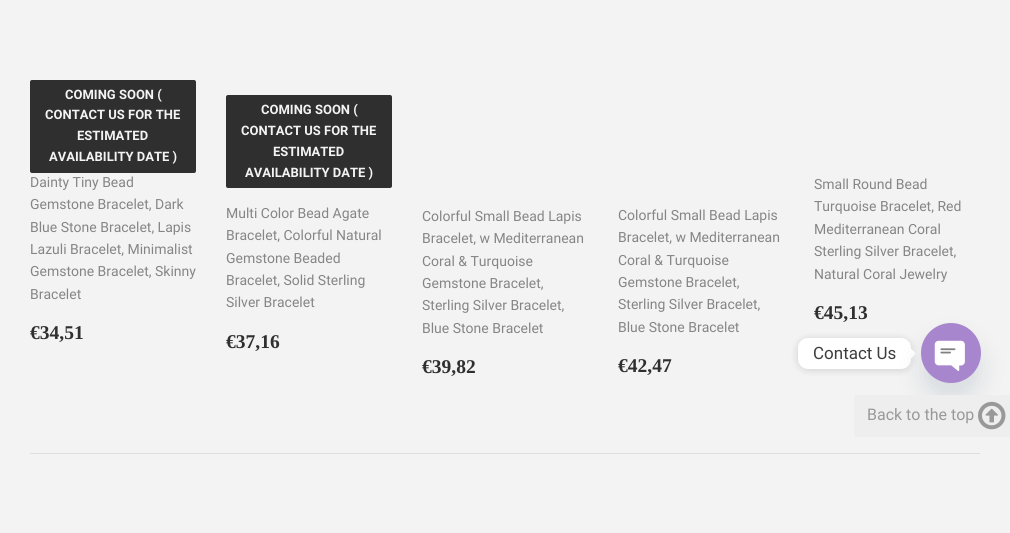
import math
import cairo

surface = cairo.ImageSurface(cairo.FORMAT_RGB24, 1010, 533)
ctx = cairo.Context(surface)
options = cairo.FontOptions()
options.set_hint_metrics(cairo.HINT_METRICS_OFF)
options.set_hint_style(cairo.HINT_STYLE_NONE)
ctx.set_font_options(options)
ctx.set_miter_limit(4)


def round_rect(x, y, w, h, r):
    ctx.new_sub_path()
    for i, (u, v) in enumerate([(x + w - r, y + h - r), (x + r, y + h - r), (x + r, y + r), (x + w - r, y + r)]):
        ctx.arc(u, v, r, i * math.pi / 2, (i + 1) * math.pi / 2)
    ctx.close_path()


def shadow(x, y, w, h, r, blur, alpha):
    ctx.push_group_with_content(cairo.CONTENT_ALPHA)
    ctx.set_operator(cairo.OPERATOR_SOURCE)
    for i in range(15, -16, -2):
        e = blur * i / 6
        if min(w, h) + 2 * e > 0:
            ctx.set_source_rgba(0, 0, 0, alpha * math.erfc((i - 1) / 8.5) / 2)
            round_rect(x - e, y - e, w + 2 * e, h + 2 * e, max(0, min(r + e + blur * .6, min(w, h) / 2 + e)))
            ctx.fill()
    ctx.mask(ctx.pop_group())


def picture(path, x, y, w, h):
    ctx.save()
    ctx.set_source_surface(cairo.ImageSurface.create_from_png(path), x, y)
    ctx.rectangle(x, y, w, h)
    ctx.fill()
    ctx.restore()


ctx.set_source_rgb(0.953, 0.953, 0.953)
ctx.paint()
ctx.set_source_rgb(0.184, 0.184, 0.184)
round_rect(30, 80, 166, 93, 2)
ctx.fill()
ctx.select_font_face("Roboto", cairo.FONT_SLANT_NORMAL, cairo.FONT_WEIGHT_BOLD)
ctx.set_font_size(13)
ctx.set_source_rgb(0.953, 0.953, 0.953)
ctx.move_to(65, 99)
ctx.show_text("COMING SOON (")
ctx.move_to(45, 119)
ctx.show_text("CONTACT US FOR THE")
ctx.move_to(77, 140)
ctx.show_text("ESTIMATED")
ctx.move_to(49, 161)
ctx.show_text("AVAILABILITY DATE )")
ctx.select_font_face("Roboto")
ctx.set_font_size(14)
ctx.set_source_rgb(0.522, 0.522, 0.522)
ctx.move_to(30, 187)
ctx.show_text("Dainty Tiny Bead")
ctx.move_to(30, 209)
ctx.show_text("Gemstone Bracelet, Dark")
ctx.move_to(30, 232)
ctx.show_text("Blue Stone Bracelet, Lapis")
ctx.move_to(30, 254)
ctx.show_text("Lazuli Bracelet, Minimalist")
ctx.move_to(30, 276)
ctx.show_text("Gemstone Bracelet, Skinny")
ctx.move_to(30, 299)
ctx.show_text("Bracelet")
ctx.select_font_face("Liberation Serif", cairo.FONT_SLANT_NORMAL, cairo.FONT_WEIGHT_BOLD)
ctx.set_font_size(19.5)
ctx.set_source_rgb(0.184, 0.184, 0.184)
ctx.move_to(30, 339)
ctx.show_text("€34,51")
round_rect(226, 95, 166, 93, 2)
ctx.fill()
ctx.select_font_face("Roboto", cairo.FONT_SLANT_NORMAL, cairo.FONT_WEIGHT_BOLD)
ctx.set_font_size(13)
ctx.set_source_rgb(0.953, 0.953, 0.953)
ctx.move_to(261, 114)
ctx.show_text("COMING SOON (")
ctx.move_to(241, 135)
ctx.show_text("CONTACT US FOR THE")
ctx.move_to(273, 156)
ctx.show_text("ESTIMATED")
ctx.move_to(245, 177)
ctx.show_text("AVAILABILITY DATE )")
ctx.select_font_face("Roboto")
ctx.set_font_size(14)
ctx.set_source_rgb(0.522, 0.522, 0.522)
ctx.move_to(226, 218)
ctx.show_text("Multi Color Bead Agate")
ctx.move_to(226, 240)
ctx.show_text("Bracelet, Colorful Natural")
ctx.move_to(226, 263)
ctx.show_text("Gemstone Beaded")
ctx.move_to(226, 285)
ctx.show_text("Bracelet, Solid Sterling")
ctx.move_to(226, 307)
ctx.show_text("Silver Bracelet")
ctx.select_font_face("Liberation Serif", cairo.FONT_SLANT_NORMAL, cairo.FONT_WEIGHT_BOLD)
ctx.set_font_size(19.5)
ctx.set_source_rgb(0.184, 0.184, 0.184)
ctx.move_to(226, 348)
ctx.show_text("€37,16")
ctx.select_font_face("Roboto")
ctx.set_font_size(14)
ctx.set_source_rgb(0.522, 0.522, 0.522)
ctx.move_to(422, 221)
ctx.show_text("Colorful Small Bead Lapis")
ctx.move_to(422, 243)
ctx.show_text("Bracelet, w Mediterranean")
ctx.move_to(422, 266)
ctx.show_text("Coral & Turquoise")
ctx.move_to(422, 288)
ctx.show_text("Gemstone Bracelet,")
ctx.move_to(422, 310)
ctx.show_text("Sterling Silver Bracelet,")
ctx.move_to(422, 333)
ctx.show_text("Blue Stone Bracelet")
ctx.select_font_face("Liberation Serif", cairo.FONT_SLANT_NORMAL, cairo.FONT_WEIGHT_BOLD)
ctx.set_font_size(19.5)
ctx.set_source_rgb(0.184, 0.184, 0.184)
ctx.move_to(422, 373)
ctx.show_text("€39,82")
ctx.select_font_face("Roboto")
ctx.set_font_size(14)
ctx.set_source_rgb(0.522, 0.522, 0.522)
ctx.move_to(618, 220)
ctx.show_text("Colorful Small Bead Lapis")
ctx.move_to(618, 242)
ctx.show_text("Bracelet, w Mediterranean")
ctx.move_to(618, 265)
ctx.show_text("Coral & Turquoise")
ctx.move_to(618, 287)
ctx.show_text("Gemstone Bracelet,")
ctx.move_to(618, 309)
ctx.show_text("Sterling Silver Bracelet,")
ctx.move_to(618, 332)
ctx.show_text("Blue Stone Bracelet")
ctx.select_font_face("Liberation Serif", cairo.FONT_SLANT_NORMAL, cairo.FONT_WEIGHT_BOLD)
ctx.set_font_size(19.5)
ctx.set_source_rgb(0.184, 0.184, 0.184)
ctx.move_to(618, 372)
ctx.show_text("€42,47")
ctx.select_font_face("Roboto")
ctx.set_font_size(14)
ctx.set_source_rgb(0.522, 0.522, 0.522)
ctx.move_to(814, 189)
ctx.show_text("Small Round Bead")
ctx.move_to(814, 211)
ctx.show_text("Turquoise Bracelet, Red")
ctx.move_to(814, 234)
ctx.show_text("Mediterranean Coral")
ctx.move_to(814, 256)
ctx.show_text("Sterling Silver Bracelet,")
ctx.move_to(814, 279)
ctx.show_text("Natural Coral Jewelry")
ctx.select_font_face("Liberation Serif", cairo.FONT_SLANT_NORMAL, cairo.FONT_WEIGHT_BOLD)
ctx.set_font_size(19.5)
ctx.set_source_rgb(0.184, 0.184, 0.184)
ctx.move_to(814, 319)
ctx.show_text("€45,13")
ctx.set_source_rgb(0.871, 0.871, 0.871)
ctx.rectangle(30, 453, 950, 1)
ctx.fill()
ctx.set_source_rgb(0, 0, 0)
shadow(798, 339, 113, 31, 10, 4, 0.15)
ctx.set_source_rgb(1, 1, 1)
round_rect(798, 338, 113, 31, 10)
ctx.fill()
ctx.select_font_face("Roboto")
ctx.set_font_size(17)
ctx.set_source_rgb(0.239, 0.239, 0.239)
ctx.move_to(813, 359)
ctx.show_text("Contact Us")
ctx.set_source_rgb(1, 1, 1)
ctx.new_path()
ctx.move_to(911, 358.5)
ctx.line_to(911, 348.5)
ctx.line_to(916, 353.5)
ctx.close_path()
ctx.fill()
ctx.set_source_rgb(0.286, 0.408, 0.494)
shadow(921, 339, 60, 60, 30, 12, 0.16)
picture("img1.png", 921, 323, 60, 60)
ctx.set_source_rgb(0.933, 0.933, 0.933)
ctx.new_path()
ctx.move_to(857, 395)
ctx.line_to(1010, 395)
ctx.line_to(1010, 437)
ctx.line_to(857, 437)
ctx.curve_to(855.5, 437, 854, 435.5, 854, 434)
ctx.line_to(854, 398)
ctx.curve_to(854, 396.5, 855.5, 395, 857, 395)
ctx.close_path()
ctx.fill()
ctx.set_font_size(16)
ctx.set_source_rgb(0.6, 0.6, 0.6)
ctx.move_to(867, 420)
ctx.show_text("Back to the top")
picture("img2.png", 978, 401, 28, 29)
surface.write_to_png("page.png")
